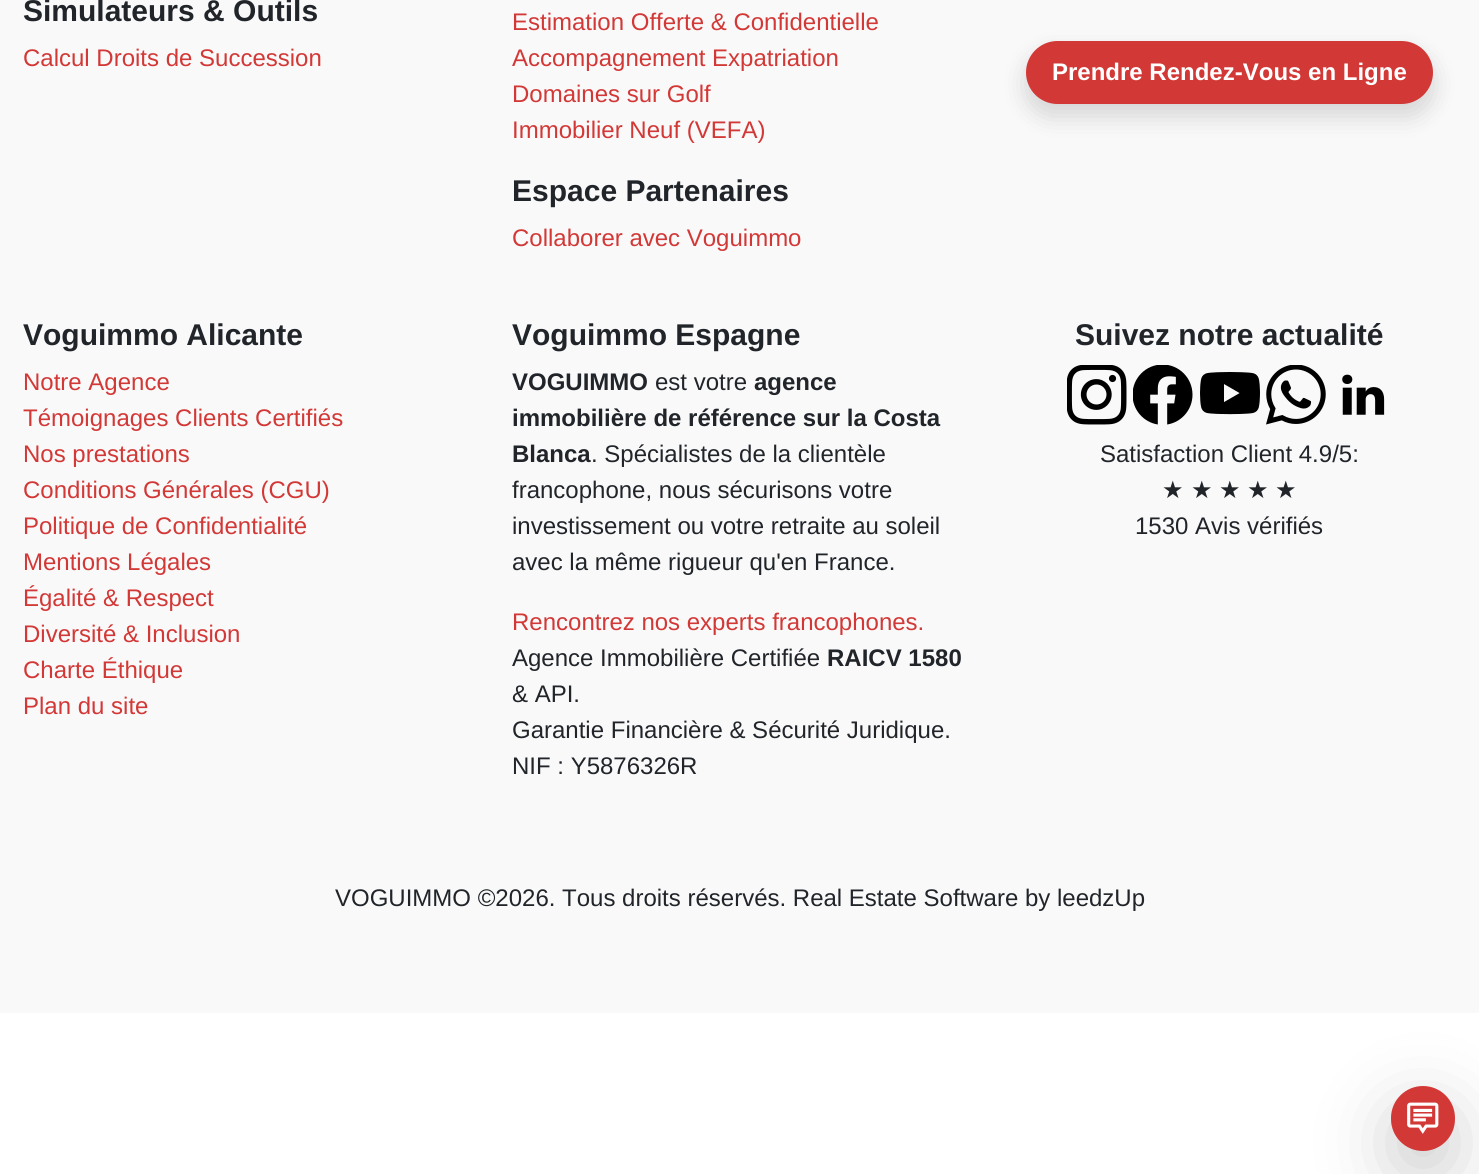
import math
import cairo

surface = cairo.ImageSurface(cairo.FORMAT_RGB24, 1479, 1174)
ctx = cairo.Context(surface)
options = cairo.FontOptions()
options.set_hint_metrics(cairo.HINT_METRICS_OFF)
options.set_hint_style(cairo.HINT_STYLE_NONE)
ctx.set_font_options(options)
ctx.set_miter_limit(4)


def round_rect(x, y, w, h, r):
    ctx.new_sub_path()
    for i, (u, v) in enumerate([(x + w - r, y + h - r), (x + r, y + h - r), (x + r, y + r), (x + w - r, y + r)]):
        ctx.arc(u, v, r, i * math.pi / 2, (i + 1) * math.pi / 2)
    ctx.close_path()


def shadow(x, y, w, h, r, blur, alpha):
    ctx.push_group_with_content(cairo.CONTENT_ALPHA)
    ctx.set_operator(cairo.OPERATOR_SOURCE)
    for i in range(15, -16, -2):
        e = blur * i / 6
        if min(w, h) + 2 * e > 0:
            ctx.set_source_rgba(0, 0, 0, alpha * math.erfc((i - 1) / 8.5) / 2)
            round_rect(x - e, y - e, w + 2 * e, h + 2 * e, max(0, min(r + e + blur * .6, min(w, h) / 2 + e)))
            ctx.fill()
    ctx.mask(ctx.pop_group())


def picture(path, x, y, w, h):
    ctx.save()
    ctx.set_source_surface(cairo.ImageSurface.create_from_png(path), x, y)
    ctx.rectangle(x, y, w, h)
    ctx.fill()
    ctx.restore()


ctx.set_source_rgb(1, 1, 1)
ctx.paint()
ctx.set_source_rgb(0.973, 0.976, 0.98)
ctx.rectangle(0, 0, 1479, 1013)
ctx.fill()
ctx.select_font_face("Liberation Sans", cairo.FONT_SLANT_NORMAL, cairo.FONT_WEIGHT_BOLD)
ctx.set_font_size(30)
ctx.set_source_rgb(0.129, 0.145, 0.161)
ctx.move_to(23, 21)
ctx.show_text("Simulateurs & Outils")
ctx.select_font_face("Liberation Sans")
ctx.set_font_size(24)
ctx.set_source_rgb(0.824, 0.22, 0.212)
ctx.move_to(23, 66)
ctx.show_text("Calcul Droits de Succession")
ctx.move_to(512, 30)
ctx.show_text("Estimation Offerte & Confidentielle")
ctx.move_to(512, 66)
ctx.show_text("Accompagnement Expatriation")
ctx.move_to(512, 102)
ctx.show_text("Domaines sur Golf")
ctx.move_to(512, 138)
ctx.show_text("Immobilier Neuf (VEFA)")
ctx.select_font_face("Liberation Sans", cairo.FONT_SLANT_NORMAL, cairo.FONT_WEIGHT_BOLD)
ctx.set_font_size(30)
ctx.set_source_rgb(0.129, 0.145, 0.161)
ctx.move_to(512, 201)
ctx.show_text("Espace Partenaires")
ctx.select_font_face("Liberation Sans")
ctx.set_font_size(24)
ctx.set_source_rgb(0.824, 0.22, 0.212)
ctx.move_to(512, 246)
ctx.show_text("Collaborer avec Voguimmo")
ctx.set_source_rgb(0, 0, 0)
shadow(1026, 53, 407, 63, 31.5, 12, 0.15)
ctx.set_source_rgb(0.824, 0.22, 0.212)
round_rect(1027, 42, 405, 61, 30.5)
ctx.fill_preserve()
ctx.stroke()
ctx.select_font_face("Liberation Sans", cairo.FONT_SLANT_NORMAL, cairo.FONT_WEIGHT_BOLD)
ctx.set_source_rgb(1, 1, 1)
ctx.move_to(1052, 80)
ctx.show_text("Prendre Rendez-Vous en Ligne")
ctx.set_font_size(30)
ctx.set_source_rgb(0.129, 0.145, 0.161)
ctx.move_to(23, 345)
ctx.show_text("Voguimmo Alicante")
ctx.select_font_face("Liberation Sans")
ctx.set_font_size(24)
ctx.set_source_rgb(0.824, 0.22, 0.212)
ctx.move_to(23, 390)
ctx.show_text("Notre Agence")
ctx.move_to(23, 426)
ctx.show_text("Témoignages Clients Certifiés")
ctx.move_to(23, 462)
ctx.show_text("Nos prestations")
ctx.move_to(23, 498)
ctx.show_text("Conditions Générales (CGU)")
ctx.move_to(23, 534)
ctx.show_text("Politique de Confidentialité")
ctx.move_to(23, 570)
ctx.show_text("Mentions Légales")
ctx.move_to(23, 606)
ctx.show_text("Égalité & Respect")
ctx.move_to(23, 642)
ctx.show_text("Diversité & Inclusion")
ctx.move_to(23, 678)
ctx.show_text("Charte Éthique")
ctx.move_to(23, 714)
ctx.show_text("Plan du site")
ctx.select_font_face("Liberation Sans", cairo.FONT_SLANT_NORMAL, cairo.FONT_WEIGHT_BOLD)
ctx.set_font_size(30)
ctx.set_source_rgb(0.129, 0.145, 0.161)
ctx.move_to(512, 345)
ctx.show_text("Voguimmo Espagne")
ctx.set_font_size(24)
ctx.move_to(512, 390)
ctx.show_text("VOGUIMMO")
ctx.select_font_face("Liberation Sans")
ctx.move_to(655, 390)
ctx.show_text("est votre")
ctx.select_font_face("Liberation Sans", cairo.FONT_SLANT_NORMAL, cairo.FONT_WEIGHT_BOLD)
ctx.move_to(754, 390)
ctx.show_text("agence")
ctx.move_to(512, 426)
ctx.show_text("immobilière de référence sur la Costa")
ctx.move_to(512, 462)
ctx.show_text("Blanca")
ctx.select_font_face("Liberation Sans")
ctx.move_to(591, 462)
ctx.show_text(". Spécialistes de la clientèle")
ctx.move_to(512, 498)
ctx.show_text("francophone, nous sécurisons votre")
ctx.move_to(512, 534)
ctx.show_text("investissement ou votre retraite au soleil")
ctx.move_to(512, 570)
ctx.show_text("avec la même rigueur qu'en France.")
ctx.set_source_rgb(0.824, 0.22, 0.212)
ctx.move_to(512, 630)
ctx.show_text("Rencontrez nos experts francophones.")
ctx.set_source_rgb(0.129, 0.145, 0.161)
ctx.move_to(512, 666)
ctx.show_text("Agence Immobilière Certifiée")
ctx.select_font_face("Liberation Sans", cairo.FONT_SLANT_NORMAL, cairo.FONT_WEIGHT_BOLD)
ctx.move_to(827, 666)
ctx.show_text("RAICV 1580")
ctx.select_font_face("Liberation Sans")
ctx.move_to(512, 702)
ctx.show_text("& API.")
ctx.move_to(512, 738)
ctx.show_text("Garantie Financière & Sécurité Juridique.")
ctx.move_to(512, 774)
ctx.show_text("NIF : Y5876326R")
ctx.select_font_face("Liberation Sans", cairo.FONT_SLANT_NORMAL, cairo.FONT_WEIGHT_BOLD)
ctx.set_font_size(30)
ctx.move_to(1075, 345)
ctx.show_text("Suivez notre actualité")
picture("img1.png", 1067, 365, 60, 60)
picture("img2.png", 1133, 365, 60, 60)
picture("img3.png", 1200, 372, 60, 43)
picture("img4.png", 1266, 365, 60, 60)
picture("img5.png", 1342, 374, 43, 41)
ctx.select_font_face("Liberation Sans")
ctx.set_font_size(24)
ctx.move_to(1100, 462)
ctx.show_text("Satisfaction Client 4.9/5:")
ctx.select_font_face("DejaVu Sans")
ctx.move_to(1162, 498)
ctx.show_text("★")
ctx.move_to(1191, 498)
ctx.show_text("★")
ctx.move_to(1219, 498)
ctx.show_text("★")
ctx.move_to(1247, 498)
ctx.show_text("★")
ctx.move_to(1275, 498)
ctx.show_text("★")
ctx.select_font_face("Liberation Sans")
ctx.move_to(1135, 534)
ctx.show_text("1530 Avis vérifiés")
ctx.move_to(335, 906)
ctx.show_text("VOGUIMMO ©2026. Tous droits réservés. Real Estate Software by leedzUp")
ctx.set_source_rgb(0, 0, 0)
shadow(1391, 1110, 64, 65, 32, 36, 0.18)
ctx.set_source_rgb(0.824, 0.22, 0.212)
round_rect(1391, 1086, 64, 65, 32)
ctx.fill()
picture("img6.png", 1407, 1102, 32, 32)
surface.write_to_png("page.png")
